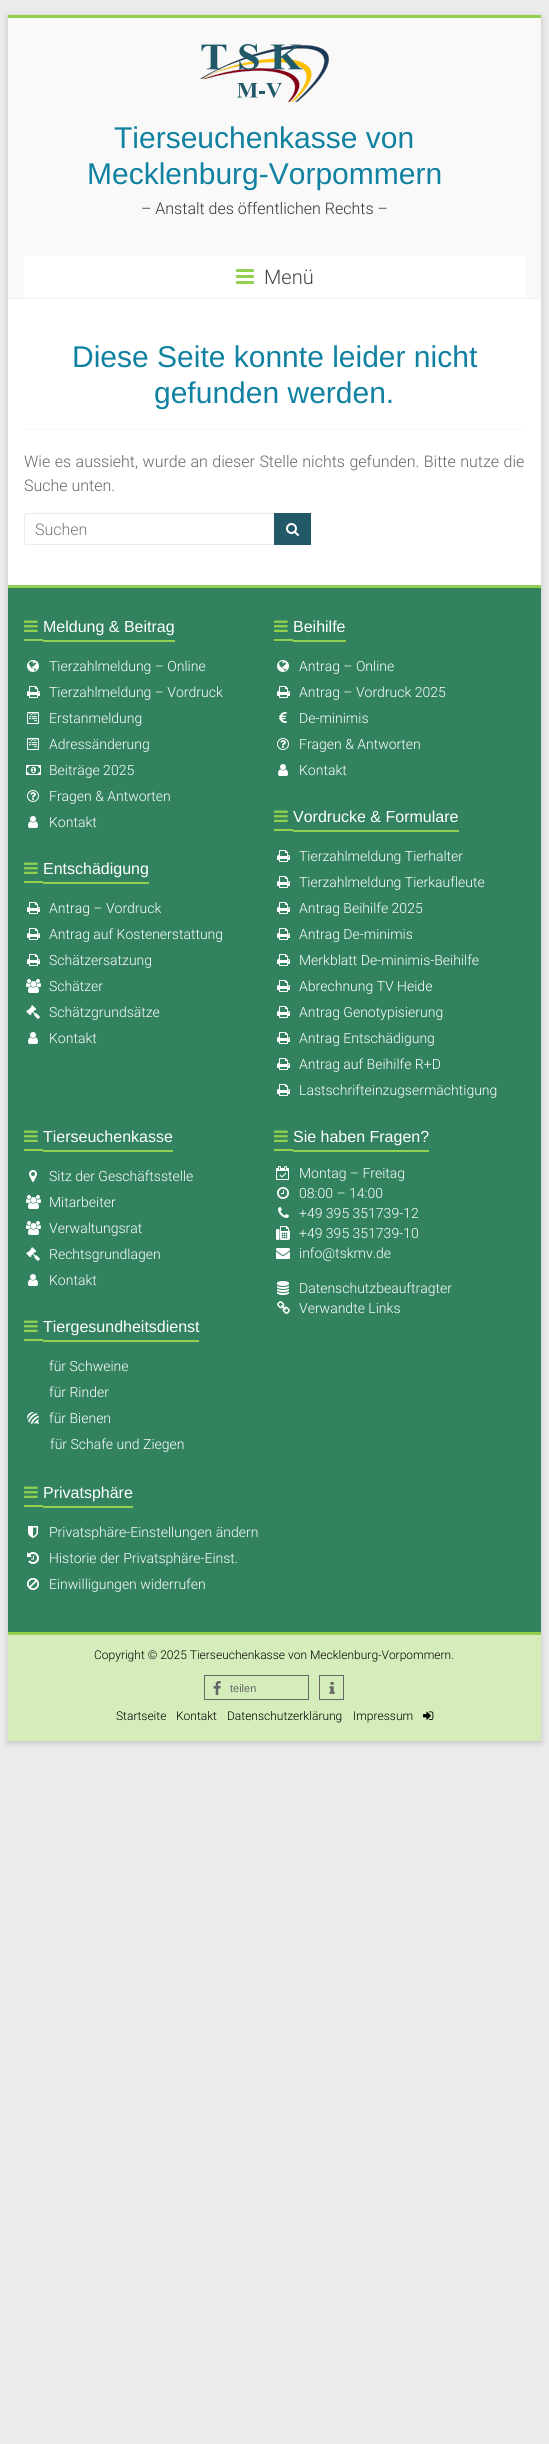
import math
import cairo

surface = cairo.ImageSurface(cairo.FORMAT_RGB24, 549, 2444)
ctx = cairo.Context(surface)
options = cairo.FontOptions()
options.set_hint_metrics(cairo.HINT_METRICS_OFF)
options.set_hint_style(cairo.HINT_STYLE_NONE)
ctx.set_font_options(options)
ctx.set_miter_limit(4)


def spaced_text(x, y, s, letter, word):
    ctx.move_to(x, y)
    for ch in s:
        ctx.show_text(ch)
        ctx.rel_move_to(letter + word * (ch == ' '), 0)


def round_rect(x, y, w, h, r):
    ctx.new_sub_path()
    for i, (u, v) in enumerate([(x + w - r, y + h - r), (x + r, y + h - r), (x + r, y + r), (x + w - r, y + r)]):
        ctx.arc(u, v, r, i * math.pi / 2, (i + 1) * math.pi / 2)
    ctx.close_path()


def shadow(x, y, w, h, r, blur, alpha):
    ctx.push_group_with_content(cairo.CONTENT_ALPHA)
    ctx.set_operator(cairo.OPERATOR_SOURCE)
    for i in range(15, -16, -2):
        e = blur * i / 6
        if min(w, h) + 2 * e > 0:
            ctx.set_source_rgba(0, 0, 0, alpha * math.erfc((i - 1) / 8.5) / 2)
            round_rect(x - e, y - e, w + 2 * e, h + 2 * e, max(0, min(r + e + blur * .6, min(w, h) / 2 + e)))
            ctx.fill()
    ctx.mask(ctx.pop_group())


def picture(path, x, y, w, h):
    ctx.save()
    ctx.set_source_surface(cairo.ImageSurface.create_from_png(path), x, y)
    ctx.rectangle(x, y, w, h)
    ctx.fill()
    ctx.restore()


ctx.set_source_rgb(0.918, 0.918, 0.918)
ctx.paint()
ctx.set_source_rgb(0.392, 0.392, 0.392)
shadow(8, 17, 533, 1726, 0, 3, 0.3)
ctx.set_source_rgb(1, 1, 1)
ctx.rectangle(8, 299, 533, 286)
ctx.fill()
ctx.set_source_rgb(0.573, 0.816, 0.314)
ctx.rectangle(8, 15, 533, 3)
ctx.fill()
ctx.set_source_rgb(0.973, 0.973, 0.973)
ctx.rectangle(8, 18, 533, 280)
ctx.fill()
ctx.set_source_rgb(0.949, 0.949, 0.949)
ctx.rectangle(8, 298, 533, 1)
ctx.fill()
picture("img1.png", 200, 44, 129, 58)
ctx.select_font_face("Liberation Sans")
ctx.set_font_size(30)
ctx.set_source_rgb(0.063, 0.506, 0.631)
ctx.move_to(114, 148)
ctx.show_text("Tierseuchenkasse von")
ctx.move_to(87, 184)
ctx.show_text("Mecklenburg-Vorpommern")
ctx.select_font_face("Roboto Light")
ctx.set_font_size(16)
ctx.set_source_rgb(0.2, 0.2, 0.2)
ctx.move_to(141, 214)
ctx.show_text("– Anstalt des öffentlichen Rechts –")
ctx.set_source_rgb(1, 1, 1)
ctx.rectangle(24, 256, 501, 42)
ctx.fill()
picture("img2.png", 236, 269, 18, 15)
ctx.set_font_size(20)
ctx.set_source_rgb(0.267, 0.267, 0.267)
ctx.move_to(264, 284)
ctx.show_text("Menü")
ctx.set_source_rgb(0.973, 0.973, 0.973)
ctx.rectangle(24, 429, 501, 1)
ctx.fill()
ctx.select_font_face("Liberation Sans")
ctx.set_font_size(30)
ctx.set_source_rgb(0.063, 0.506, 0.631)
ctx.move_to(72, 367)
ctx.show_text("Diese Seite konnte leider nicht")
ctx.move_to(154, 403)
ctx.show_text("gefunden werden.")
ctx.select_font_face("Roboto Light")
ctx.set_font_size(16)
ctx.set_source_rgb(0.4, 0.4, 0.4)
spaced_text(24, 467, "Wie es aussieht, wurde an dieser Stelle nichts gefunden. Bitte nutze die", 0, 0.6)
ctx.move_to(24, 491)
ctx.show_text("Suche unten.")
ctx.set_source_rgb(0.918, 0.918, 0.918)
ctx.set_fill_rule(cairo.FILL_RULE_EVEN_ODD)
ctx.new_path()
ctx.move_to(27, 513)
ctx.line_to(274, 513)
ctx.line_to(274, 545)
ctx.line_to(27, 545)
ctx.curve_to(25, 545, 24, 544, 24, 542)
ctx.line_to(24, 516)
ctx.curve_to(24, 514, 25, 513, 27, 513)
ctx.close_path()
ctx.move_to(27, 514)
ctx.line_to(274, 514)
ctx.line_to(274, 544)
ctx.line_to(27, 544)
ctx.curve_to(26, 544, 25, 543, 25, 542)
ctx.line_to(25, 516)
ctx.curve_to(25, 515, 26, 514, 27, 514)
ctx.close_path()
ctx.fill()
ctx.set_source_rgb(0.459, 0.459, 0.459)
ctx.move_to(35, 535)
ctx.show_text("Suchen")
ctx.set_source_rgb(0.129, 0.349, 0.408)
ctx.rectangle(274, 513, 37, 32)
ctx.fill()
picture("img3.png", 286, 523, 13, 13)
ctx.set_source_rgb(0.196, 0.51, 0.373)
ctx.rectangle(8, 588, 533, 1044)
ctx.fill()
ctx.set_source_rgb(0.573, 0.816, 0.314)
ctx.rectangle(8, 585, 533, 3)
ctx.fill()
picture("img4.png", 24, 620, 14, 12)
ctx.select_font_face("Liberation Sans")
ctx.set_source_rgb(1, 1, 1)
ctx.move_to(43, 632)
ctx.show_text("Meldung & Beitrag")
ctx.set_source_rgb(0.573, 0.816, 0.314)
ctx.rectangle(24, 639, 19, 2)
ctx.fill()
ctx.rectangle(43, 640, 132, 2)
ctx.fill()
picture("img5.png", 27, 660, 12, 12)
ctx.select_font_face("Roboto Light")
ctx.set_font_size(14)
ctx.set_source_rgb(1, 1, 1)
ctx.move_to(49, 671)
ctx.show_text("Tierzahlmeldung – Online")
picture("img6.png", 27, 686, 13, 12)
ctx.move_to(49, 697)
ctx.show_text("Tierzahlmeldung – Vordruck")
picture("img7.png", 27, 712, 12, 12)
ctx.move_to(49, 723)
ctx.show_text("Erstanmeldung")
picture("img7.png", 27, 738, 12, 12)
ctx.move_to(49, 749)
ctx.show_text("Adressänderung")
picture("img8.png", 26, 765, 15, 10)
ctx.move_to(49, 775)
ctx.show_text("Beiträge 2025")
picture("img9.png", 27, 790, 12, 12)
ctx.move_to(49, 801)
ctx.show_text("Fragen & Antworten")
picture("img10.png", 28, 816, 10, 12)
ctx.move_to(49, 827)
ctx.show_text("Kontakt")
picture("img4.png", 24, 862, 14, 12)
ctx.select_font_face("Liberation Sans")
ctx.set_font_size(16)
ctx.move_to(43, 874)
ctx.show_text("Entschädigung")
ctx.set_source_rgb(0.573, 0.816, 0.314)
ctx.rectangle(24, 881, 19, 2)
ctx.fill()
ctx.rectangle(43, 882, 106, 2)
ctx.fill()
picture("img6.png", 27, 902, 13, 12)
ctx.select_font_face("Roboto Light")
ctx.set_font_size(14)
ctx.set_source_rgb(1, 1, 1)
ctx.move_to(49, 913)
ctx.show_text("Antrag – Vordruck")
picture("img6.png", 27, 928, 13, 12)
ctx.move_to(49, 939)
ctx.show_text("Antrag auf Kostenerstattung")
picture("img6.png", 27, 954, 13, 12)
ctx.move_to(49, 965)
ctx.show_text("Schätzersatzung")
picture("img11.png", 26, 979, 15, 14)
ctx.move_to(49, 991)
ctx.show_text("Schätzer")
picture("img12.png", 26, 1005, 14, 14)
ctx.move_to(49, 1017)
ctx.show_text("Schätzgrundsätze")
picture("img10.png", 28, 1032, 10, 12)
ctx.move_to(49, 1043)
ctx.show_text("Kontakt")
picture("img4.png", 274, 620, 14, 12)
ctx.select_font_face("Liberation Sans")
ctx.set_font_size(16)
ctx.move_to(293, 632)
ctx.show_text("Beihilfe")
ctx.set_source_rgb(0.573, 0.816, 0.314)
ctx.rectangle(274, 639, 19, 2)
ctx.fill()
ctx.rectangle(293, 640, 53, 2)
ctx.fill()
picture("img5.png", 277, 660, 12, 12)
ctx.select_font_face("Roboto Light")
ctx.set_font_size(14)
ctx.set_source_rgb(1, 1, 1)
ctx.move_to(299, 671)
ctx.show_text("Antrag – Online")
picture("img6.png", 277, 686, 13, 12)
ctx.move_to(299, 697)
ctx.show_text("Antrag – Vordruck 2025")
picture("img13.png", 279, 712, 8, 11)
ctx.move_to(299, 723)
ctx.show_text("De-minimis")
picture("img9.png", 277, 738, 12, 12)
ctx.move_to(299, 749)
ctx.show_text("Fragen & Antworten")
picture("img10.png", 278, 764, 10, 12)
ctx.move_to(299, 775)
ctx.show_text("Kontakt")
picture("img4.png", 274, 810, 14, 12)
ctx.select_font_face("Liberation Sans")
ctx.set_font_size(16)
ctx.move_to(293, 822)
ctx.show_text("Vordrucke & Formulare")
ctx.set_source_rgb(0.573, 0.816, 0.314)
ctx.rectangle(274, 829, 19, 2)
ctx.fill()
ctx.rectangle(293, 830, 166, 2)
ctx.fill()
picture("img6.png", 277, 850, 13, 12)
ctx.select_font_face("Roboto Light")
ctx.set_font_size(14)
ctx.set_source_rgb(1, 1, 1)
ctx.move_to(299, 861)
ctx.show_text("Tierzahlmeldung Tierhalter")
picture("img6.png", 277, 876, 13, 12)
ctx.move_to(299, 887)
ctx.show_text("Tierzahlmeldung Tierkaufleute")
picture("img6.png", 277, 902, 13, 12)
ctx.move_to(299, 913)
ctx.show_text("Antrag Beihilfe 2025")
picture("img6.png", 277, 928, 13, 12)
ctx.move_to(299, 939)
ctx.show_text("Antrag De-minimis")
picture("img6.png", 277, 954, 13, 12)
ctx.move_to(299, 965)
ctx.show_text("Merkblatt De-minimis-Beihilfe")
picture("img6.png", 277, 980, 13, 12)
ctx.move_to(299, 991)
ctx.show_text("Abrechnung TV Heide")
picture("img6.png", 277, 1006, 13, 12)
ctx.move_to(299, 1017)
ctx.show_text("Antrag Genotypisierung")
picture("img6.png", 277, 1032, 13, 12)
ctx.move_to(299, 1043)
ctx.show_text("Antrag Entschädigung")
picture("img6.png", 277, 1058, 13, 12)
ctx.move_to(299, 1069)
ctx.show_text("Antrag auf Beihilfe R+D")
picture("img6.png", 277, 1084, 13, 12)
ctx.move_to(299, 1095)
ctx.show_text("Lastschrifteinzugsermächtigung")
picture("img4.png", 24, 1130, 14, 12)
ctx.select_font_face("Liberation Sans")
ctx.set_font_size(16)
ctx.move_to(43, 1142)
ctx.show_text("Tierseuchenkasse")
ctx.set_source_rgb(0.573, 0.816, 0.314)
ctx.rectangle(24, 1149, 19, 2)
ctx.fill()
ctx.rectangle(43, 1150, 130, 2)
ctx.fill()
picture("img14.png", 29, 1170, 8, 12)
ctx.select_font_face("Roboto Light")
ctx.set_font_size(14)
ctx.set_source_rgb(1, 1, 1)
ctx.move_to(49, 1181)
ctx.show_text("Sitz der Geschäftsstelle")
picture("img11.png", 26, 1195, 15, 14)
ctx.move_to(49, 1207)
ctx.show_text("Mitarbeiter")
picture("img11.png", 26, 1221, 15, 14)
ctx.move_to(49, 1233)
ctx.show_text("Verwaltungsrat")
picture("img12.png", 26, 1247, 14, 14)
ctx.move_to(49, 1259)
ctx.show_text("Rechtsgrundlagen")
picture("img10.png", 28, 1274, 10, 12)
ctx.move_to(49, 1285)
ctx.show_text("Kontakt")
picture("img4.png", 24, 1320, 14, 12)
ctx.select_font_face("Liberation Sans")
ctx.set_font_size(16)
ctx.move_to(43, 1332)
ctx.show_text("Tiergesundheitsdienst")
ctx.set_source_rgb(0.573, 0.816, 0.314)
ctx.rectangle(24, 1339, 19, 2)
ctx.fill()
ctx.rectangle(43, 1340, 156, 2)
ctx.fill()
ctx.select_font_face("Roboto Light")
ctx.set_font_size(14)
ctx.set_source_rgb(1, 1, 1)
ctx.move_to(49, 1371)
ctx.show_text("für Schweine")
ctx.move_to(49, 1397)
ctx.show_text("für Rinder")
picture("img15.png", 27, 1412, 12, 12)
ctx.move_to(49, 1423)
ctx.show_text("für Bienen")
ctx.move_to(50, 1449)
ctx.show_text("für Schafe und Ziegen")
picture("img4.png", 24, 1486, 14, 12)
ctx.select_font_face("Liberation Sans")
ctx.set_font_size(16)
ctx.move_to(43, 1498)
ctx.show_text("Privatsphäre")
ctx.set_source_rgb(0.573, 0.816, 0.314)
ctx.rectangle(24, 1505, 19, 2)
ctx.fill()
ctx.rectangle(43, 1506, 90, 2)
ctx.fill()
picture("img16.png", 28, 1526, 10, 12)
ctx.select_font_face("Roboto Light")
ctx.set_font_size(14)
ctx.set_source_rgb(1, 1, 1)
ctx.move_to(49, 1537)
ctx.show_text("Privatsphäre-Einstellungen ändern")
picture("img17.png", 27, 1552, 12, 12)
ctx.move_to(49, 1563)
ctx.show_text("Historie der Privatsphäre-Einst.")
picture("img18.png", 27, 1578, 12, 12)
ctx.move_to(49, 1589)
ctx.show_text("Einwilligungen widerrufen")
picture("img4.png", 274, 1130, 14, 12)
ctx.select_font_face("Liberation Sans")
ctx.set_font_size(16)
ctx.move_to(293, 1142)
ctx.show_text("Sie haben Fragen?")
ctx.set_source_rgb(0.573, 0.816, 0.314)
ctx.rectangle(274, 1149, 19, 2)
ctx.fill()
ctx.rectangle(293, 1150, 136, 2)
ctx.fill()
picture("img19.png", 276, 1166, 13, 14)
ctx.select_font_face("Roboto Light")
ctx.set_font_size(14)
ctx.set_source_rgb(1, 1, 1)
ctx.move_to(299, 1178)
ctx.show_text("Montag – Freitag")
picture("img20.png", 277, 1187, 12, 12)
ctx.move_to(299, 1198)
ctx.show_text("08:00 – 14:00")
picture("img21.png", 278, 1207, 11, 11)
ctx.move_to(299, 1218)
ctx.show_text("+49 395 351739-12")
picture("img22.png", 276, 1226, 14, 14)
ctx.move_to(299, 1238)
ctx.show_text("+49 395 351739-10")
picture("img23.png", 276, 1248, 14, 11)
ctx.move_to(299, 1258)
ctx.show_text("info@tskmv.de")
picture("img24.png", 277, 1281, 12, 14)
ctx.move_to(299, 1293)
ctx.show_text("Datenschutzbeauftragter")
picture("img25.png", 277, 1301, 13, 13)
ctx.move_to(299, 1313)
ctx.show_text("Verwandte Links")
ctx.set_source_rgb(0.831, 0.929, 0.733)
ctx.rectangle(8, 1635, 533, 106)
ctx.fill()
ctx.set_source_rgb(0.573, 0.816, 0.314)
ctx.rectangle(8, 1632, 533, 3)
ctx.fill()
ctx.set_font_size(12)
ctx.set_source_rgb(0, 0, 0)
ctx.move_to(94, 1659)
ctx.show_text("Copyright © 2025 Tierseuchenkasse von Mecklenburg-Vorpommern.")
ctx.rectangle(204.5, 1675.5, 104, 24)
ctx.set_source_rgb(0.4, 0.4, 0.4)
ctx.set_line_width(1)
ctx.stroke()
picture("img26.png", 213, 1681, 8, 14)
ctx.select_font_face("Liberation Sans")
ctx.set_font_size(11)
ctx.move_to(230, 1692)
ctx.show_text("teilen")
ctx.rectangle(319.5, 1675.5, 24, 24)
ctx.stroke()
picture("img27.png", 329, 1682, 6, 12)
ctx.select_font_face("Roboto Light")
ctx.set_font_size(12)
ctx.set_source_rgb(0, 0, 0)
ctx.move_to(116, 1720)
ctx.show_text("Startseite")
ctx.move_to(176, 1720)
ctx.show_text("Kontakt")
ctx.move_to(227, 1720)
ctx.show_text("Datenschutzerklärung")
ctx.move_to(353, 1720)
ctx.show_text("Impressum")
picture("img28.png", 423, 1711, 11, 9)
surface.write_to_png("page.png")
